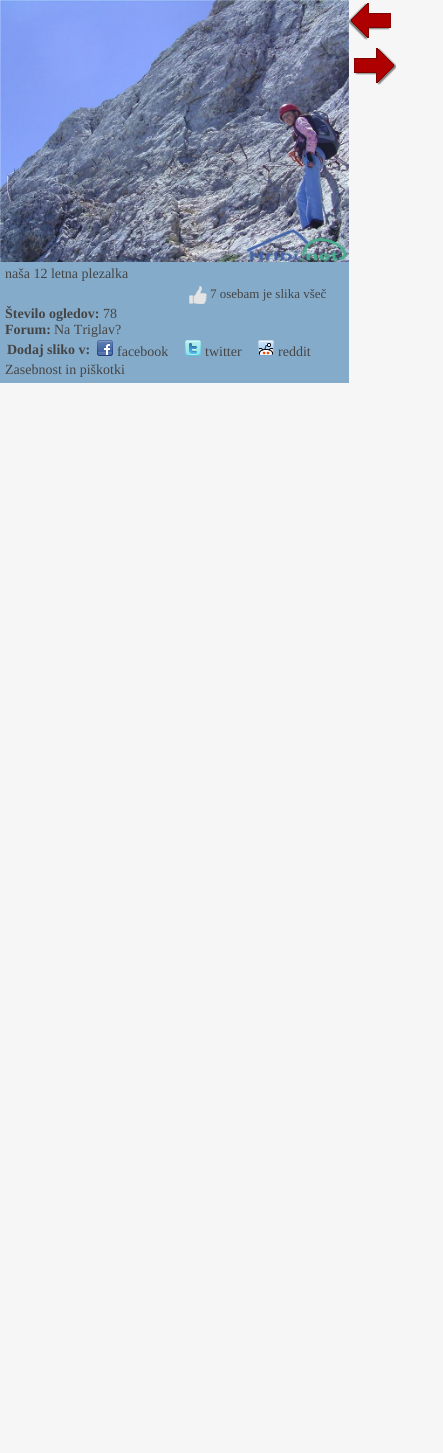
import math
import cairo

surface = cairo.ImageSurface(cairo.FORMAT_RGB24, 443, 1453)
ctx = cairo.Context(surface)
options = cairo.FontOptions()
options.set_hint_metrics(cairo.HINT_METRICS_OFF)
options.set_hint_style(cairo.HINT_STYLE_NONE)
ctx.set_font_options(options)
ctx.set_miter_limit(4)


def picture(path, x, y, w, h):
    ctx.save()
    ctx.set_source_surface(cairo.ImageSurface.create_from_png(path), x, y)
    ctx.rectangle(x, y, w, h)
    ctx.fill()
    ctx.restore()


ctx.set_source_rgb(0.961, 0.961, 0.961)
ctx.paint()
picture("img1.png", 349, 3, 42, 37)
picture("img2.png", 354, 48, 42, 37)
ctx.set_source_rgb(0.522, 0.671, 0.792)
ctx.rectangle(0, 262, 349, 121)
ctx.fill()
picture("img3.png", 0, 0, 349, 262)
ctx.select_font_face("Liberation Serif")
ctx.set_font_size(14)
ctx.set_source_rgb(0.267, 0.267, 0.267)
ctx.move_to(5, 278)
ctx.show_text("naša 12 letna plezalka")
picture("img4.png", 189, 286, 18, 18)
ctx.set_font_size(13)
ctx.move_to(210, 298)
ctx.show_text("7 osebam je slika všeč")
ctx.select_font_face("Liberation Serif", cairo.FONT_SLANT_NORMAL, cairo.FONT_WEIGHT_BOLD)
ctx.set_font_size(14)
ctx.move_to(5, 318)
ctx.show_text("Število ogledov:")
ctx.select_font_face("Liberation Serif")
ctx.move_to(103, 318)
ctx.show_text("78")
ctx.select_font_face("Liberation Serif", cairo.FONT_SLANT_NORMAL, cairo.FONT_WEIGHT_BOLD)
ctx.move_to(5, 334)
ctx.show_text("Forum:")
ctx.select_font_face("Liberation Serif")
ctx.move_to(54, 334)
ctx.show_text("Na Triglav?")
ctx.select_font_face("Liberation Serif", cairo.FONT_SLANT_NORMAL, cairo.FONT_WEIGHT_BOLD)
ctx.move_to(7, 354)
ctx.show_text("Dodaj sliko v:")
picture("img5.png", 97, 340, 16, 16)
ctx.select_font_face("Liberation Serif")
ctx.move_to(117, 356)
ctx.show_text("facebook")
picture("img6.png", 185, 340, 16, 16)
ctx.move_to(205, 356)
ctx.show_text("twitter")
picture("img7.png", 258, 340, 16, 16)
ctx.move_to(278, 356)
ctx.show_text("reddit")
ctx.move_to(5, 374)
ctx.show_text("Zasebnost in piškotki")
surface.write_to_png("page.png")
